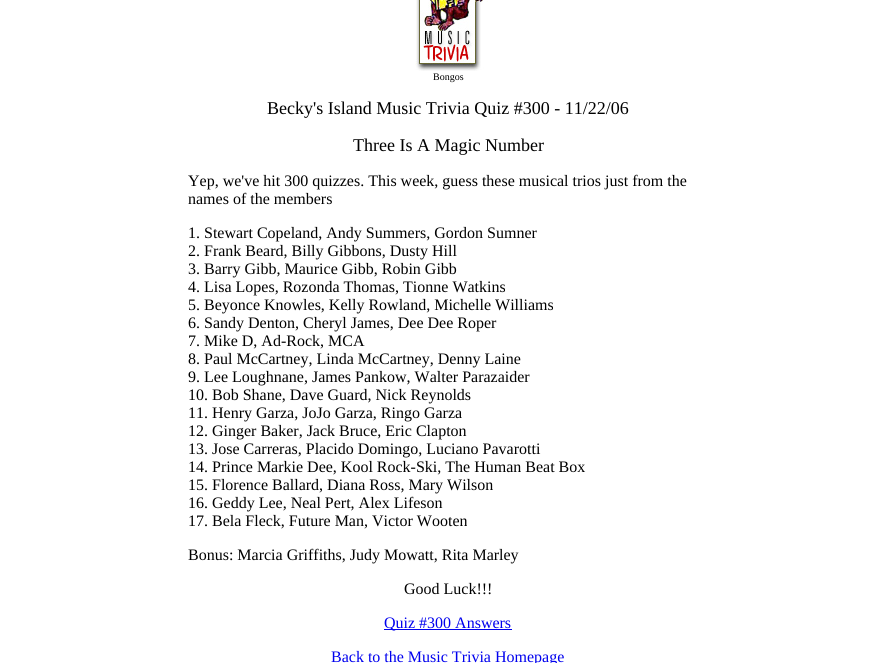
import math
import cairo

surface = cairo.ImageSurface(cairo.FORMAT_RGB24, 895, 663)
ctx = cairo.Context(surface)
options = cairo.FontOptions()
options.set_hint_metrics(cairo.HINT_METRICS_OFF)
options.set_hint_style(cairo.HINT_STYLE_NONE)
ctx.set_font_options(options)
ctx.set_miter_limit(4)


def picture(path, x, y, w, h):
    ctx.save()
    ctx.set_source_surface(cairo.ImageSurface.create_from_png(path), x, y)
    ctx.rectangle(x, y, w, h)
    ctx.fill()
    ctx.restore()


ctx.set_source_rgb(1, 1, 1)
ctx.paint()
picture("img1.png", 415, 0, 73, 71)
ctx.select_font_face("Liberation Serif")
ctx.set_font_size(10)
ctx.set_source_rgb(0, 0, 0)
ctx.move_to(433, 80)
ctx.show_text("Bongos")
ctx.set_font_size(18)
ctx.move_to(267, 114)
ctx.show_text("Becky's Island Music Trivia Quiz #300 - 11/22/06")
ctx.move_to(353, 151)
ctx.show_text("Three Is A Magic Number")
ctx.set_font_size(16)
ctx.move_to(188, 186)
ctx.show_text("Yep, we've hit 300 quizzes. This week, guess these musical trios just from the")
ctx.move_to(188, 204)
ctx.show_text("names of the members")
ctx.move_to(188, 238)
ctx.show_text("1. Stewart Copeland, Andy Summers, Gordon Sumner")
ctx.move_to(188, 256)
ctx.show_text("2. Frank Beard, Billy Gibbons, Dusty Hill")
ctx.move_to(188, 274)
ctx.show_text("3. Barry Gibb, Maurice Gibb, Robin Gibb")
ctx.move_to(188, 292)
ctx.show_text("4. Lisa Lopes, Rozonda Thomas, Tionne Watkins")
ctx.move_to(188, 310)
ctx.show_text("5. Beyonce Knowles, Kelly Rowland, Michelle Williams")
ctx.move_to(188, 328)
ctx.show_text("6. Sandy Denton, Cheryl James, Dee Dee Roper")
ctx.move_to(188, 346)
ctx.show_text("7. Mike D, Ad-Rock, MCA")
ctx.move_to(188, 364)
ctx.show_text("8. Paul McCartney, Linda McCartney, Denny Laine")
ctx.move_to(188, 382)
ctx.show_text("9. Lee Loughnane, James Pankow, Walter Parazaider")
ctx.move_to(188, 400)
ctx.show_text("10. Bob Shane, Dave Guard, Nick Reynolds")
ctx.move_to(188, 418)
ctx.show_text("11. Henry Garza, JoJo Garza, Ringo Garza")
ctx.move_to(188, 436)
ctx.show_text("12. Ginger Baker, Jack Bruce, Eric Clapton")
ctx.move_to(188, 454)
ctx.show_text("13. Jose Carreras, Placido Domingo, Luciano Pavarotti")
ctx.move_to(188, 472)
ctx.show_text("14. Prince Markie Dee, Kool Rock-Ski, The Human Beat Box")
ctx.move_to(188, 490)
ctx.show_text("15. Florence Ballard, Diana Ross, Mary Wilson")
ctx.move_to(188, 508)
ctx.show_text("16. Geddy Lee, Neal Pert, Alex Lifeson")
ctx.move_to(188, 526)
ctx.show_text("17. Bela Fleck, Future Man, Victor Wooten")
ctx.move_to(188, 560)
ctx.show_text("Bonus: Marcia Griffiths, Judy Mowatt, Rita Marley")
ctx.move_to(404, 594)
ctx.show_text("Good Luck!!!")
ctx.set_source_rgb(0, 0, 0.933)
ctx.rectangle(384, 629, 128, 1)
ctx.fill()
ctx.move_to(384, 628)
ctx.show_text("Quiz #300 Answers")
ctx.move_to(331, 662)
ctx.show_text("Back to the Music Trivia Homepage")
surface.write_to_png("page.png")
